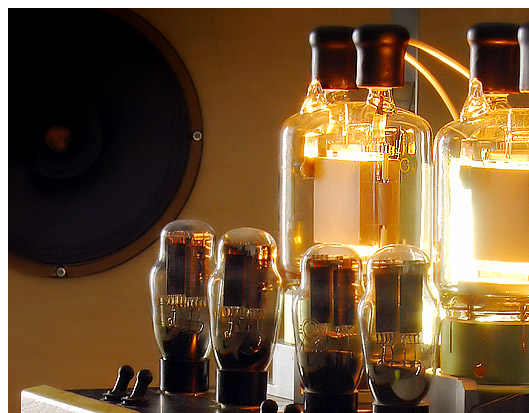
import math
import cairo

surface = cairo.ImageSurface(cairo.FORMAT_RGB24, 529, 413)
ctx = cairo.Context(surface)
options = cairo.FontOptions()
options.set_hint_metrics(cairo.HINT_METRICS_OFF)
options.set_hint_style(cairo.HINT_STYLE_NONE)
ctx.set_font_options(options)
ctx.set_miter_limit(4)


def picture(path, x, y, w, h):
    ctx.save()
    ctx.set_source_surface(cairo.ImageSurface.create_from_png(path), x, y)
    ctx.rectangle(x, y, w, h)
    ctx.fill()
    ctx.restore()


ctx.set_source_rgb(1, 1, 1)
ctx.paint()
picture("img1.png", 8, 8, 521, 405)
surface.write_to_png("page.png")
